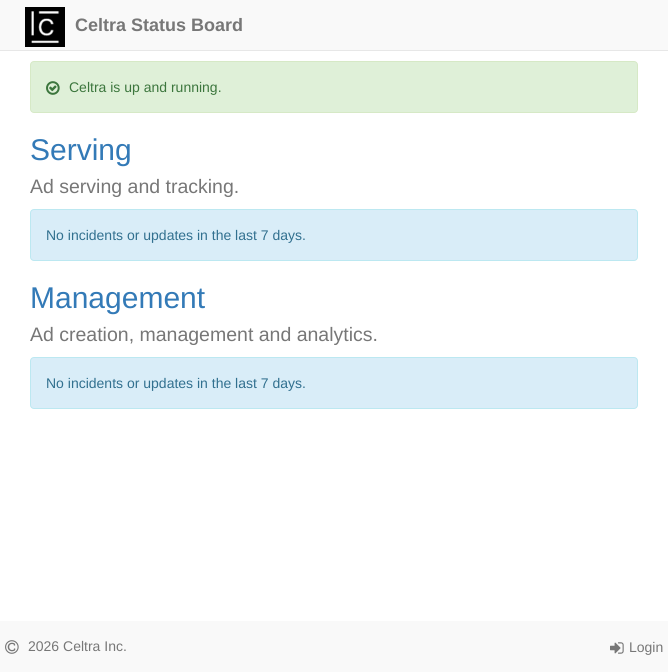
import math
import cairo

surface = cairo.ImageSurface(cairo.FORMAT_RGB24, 668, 672)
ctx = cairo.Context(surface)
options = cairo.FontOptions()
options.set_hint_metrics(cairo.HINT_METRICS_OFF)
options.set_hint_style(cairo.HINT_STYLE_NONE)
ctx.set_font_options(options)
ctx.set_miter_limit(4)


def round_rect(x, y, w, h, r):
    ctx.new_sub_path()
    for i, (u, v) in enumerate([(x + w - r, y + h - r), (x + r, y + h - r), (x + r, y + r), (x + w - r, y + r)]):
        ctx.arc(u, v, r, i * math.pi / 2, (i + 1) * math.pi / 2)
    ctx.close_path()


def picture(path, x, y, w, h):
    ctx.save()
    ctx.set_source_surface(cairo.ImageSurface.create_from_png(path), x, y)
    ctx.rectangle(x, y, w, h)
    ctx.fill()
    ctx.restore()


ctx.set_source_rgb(1, 1, 1)
ctx.paint()
ctx.set_source_rgb(0.973, 0.973, 0.973)
ctx.rectangle(0, 0, 668, 50)
ctx.fill()
ctx.set_source_rgb(0.906, 0.906, 0.906)
ctx.rectangle(0, 50, 668, 1)
ctx.fill()
picture("img1.png", 25, 7, 40, 40)
ctx.select_font_face("Liberation Sans", cairo.FONT_SLANT_NORMAL, cairo.FONT_WEIGHT_BOLD)
ctx.set_font_size(18)
ctx.set_source_rgb(0.467, 0.467, 0.467)
ctx.move_to(75, 31)
ctx.show_text("Celtra Status Board")
ctx.set_source_rgb(0.875, 0.941, 0.847)
round_rect(30.5, 61.5, 607, 51, 3.5)
ctx.fill_preserve()
ctx.set_source_rgb(0.839, 0.914, 0.776)
ctx.set_line_width(1)
ctx.stroke()
picture("img2.png", 46, 81, 14, 14)
ctx.select_font_face("Liberation Sans")
ctx.set_font_size(14)
ctx.set_source_rgb(0.235, 0.463, 0.239)
ctx.move_to(69, 92)
ctx.show_text("Celtra is up and running.")
ctx.set_font_size(30)
ctx.set_source_rgb(0.2, 0.478, 0.718)
ctx.move_to(30, 160)
ctx.show_text("Serving")
ctx.set_font_size(19.5)
ctx.set_source_rgb(0.467, 0.467, 0.467)
ctx.move_to(30, 193)
ctx.show_text("Ad serving and tracking.")
ctx.set_source_rgb(0.851, 0.929, 0.969)
round_rect(30.5, 209.5, 607, 51, 3.5)
ctx.fill_preserve()
ctx.set_source_rgb(0.737, 0.91, 0.945)
ctx.stroke()
ctx.set_font_size(14)
ctx.set_source_rgb(0.192, 0.439, 0.561)
ctx.move_to(46, 240)
ctx.show_text("No incidents or updates in the last 7 days.")
ctx.set_font_size(30)
ctx.set_source_rgb(0.2, 0.478, 0.718)
ctx.move_to(30, 308)
ctx.show_text("Management")
ctx.set_font_size(19.5)
ctx.set_source_rgb(0.467, 0.467, 0.467)
ctx.move_to(30, 341)
ctx.show_text("Ad creation, management and analytics.")
ctx.set_source_rgb(0.851, 0.929, 0.969)
round_rect(30.5, 357.5, 607, 51, 3.5)
ctx.fill_preserve()
ctx.set_source_rgb(0.737, 0.91, 0.945)
ctx.stroke()
ctx.set_font_size(14)
ctx.set_source_rgb(0.192, 0.439, 0.561)
ctx.move_to(46, 388)
ctx.show_text("No incidents or updates in the last 7 days.")
ctx.set_source_rgb(0.973, 0.973, 0.973)
ctx.rectangle(0, 621, 668, 51)
ctx.fill()
picture("img3.png", 5, 640, 14, 14)
ctx.set_source_rgb(0.467, 0.467, 0.467)
ctx.move_to(28, 651)
ctx.show_text("2026 Celtra Inc.")
picture("img4.png", 610, 642, 14, 12)
ctx.move_to(629, 652)
ctx.show_text("Login")
surface.write_to_png("page.png")
